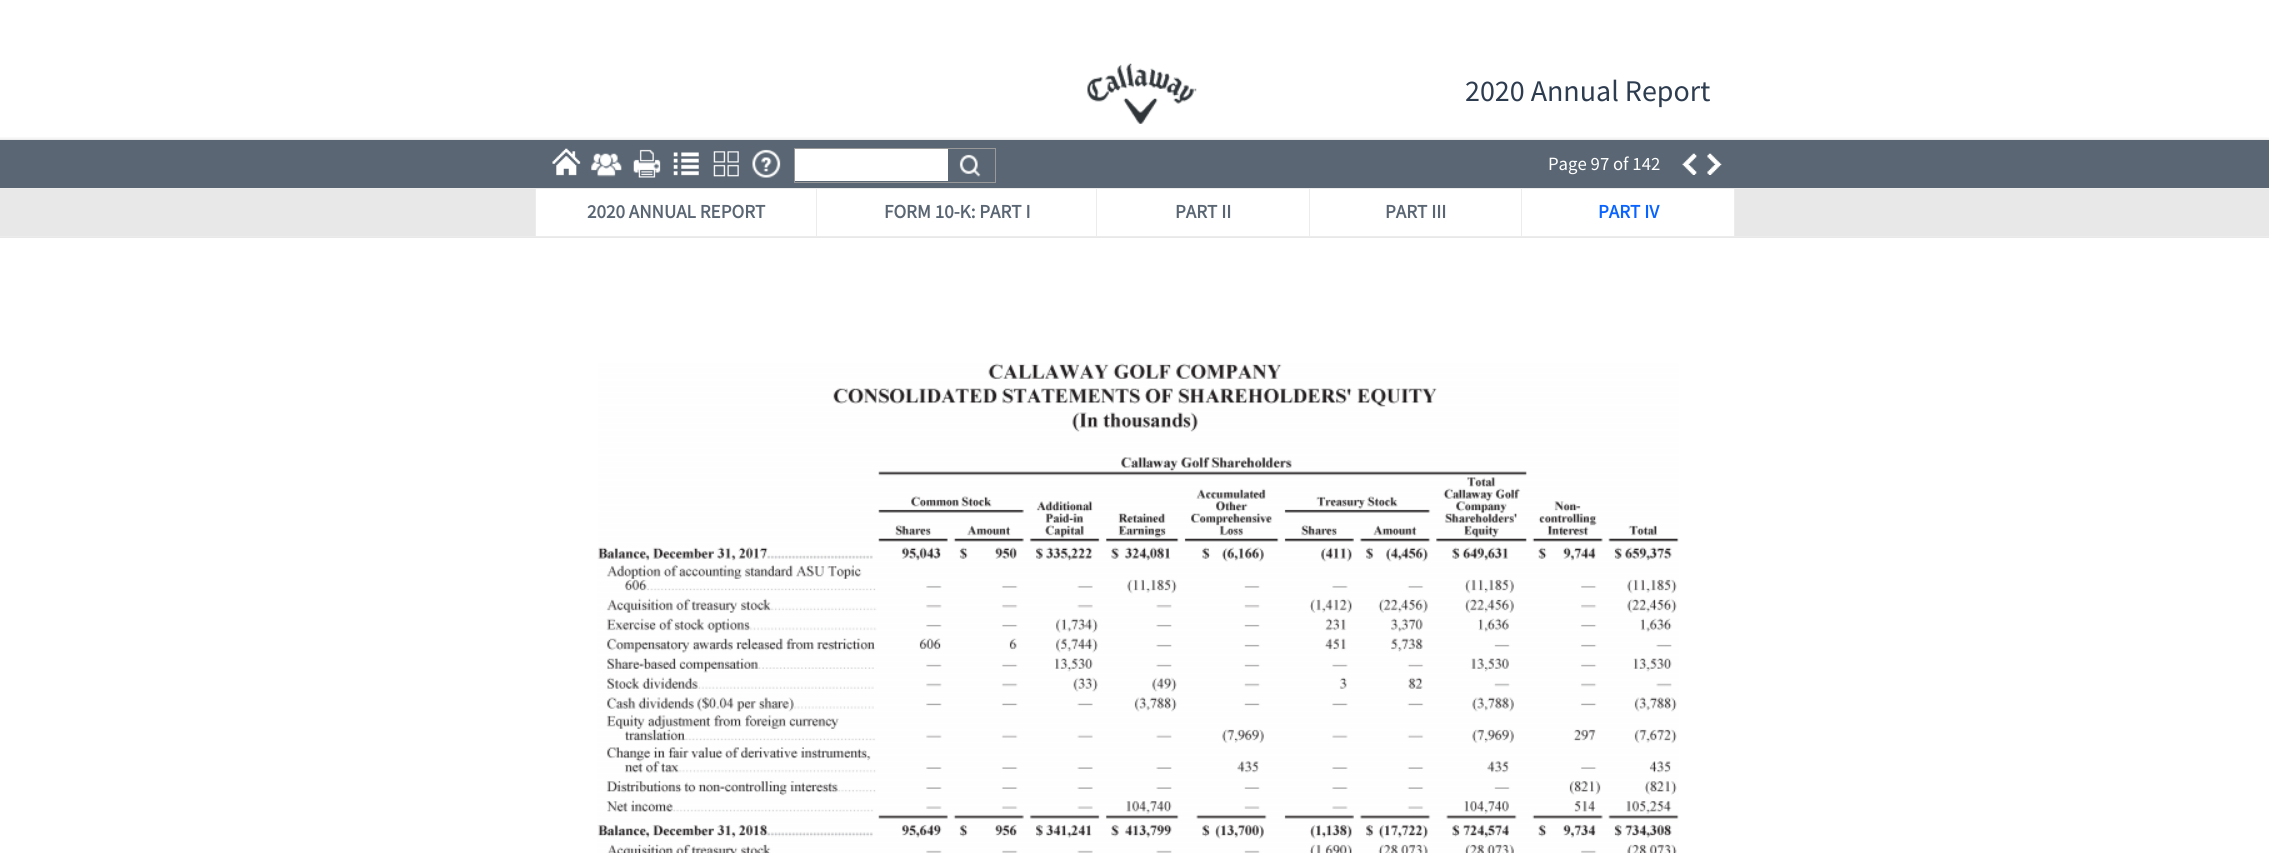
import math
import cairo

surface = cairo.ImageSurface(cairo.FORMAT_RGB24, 2269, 853)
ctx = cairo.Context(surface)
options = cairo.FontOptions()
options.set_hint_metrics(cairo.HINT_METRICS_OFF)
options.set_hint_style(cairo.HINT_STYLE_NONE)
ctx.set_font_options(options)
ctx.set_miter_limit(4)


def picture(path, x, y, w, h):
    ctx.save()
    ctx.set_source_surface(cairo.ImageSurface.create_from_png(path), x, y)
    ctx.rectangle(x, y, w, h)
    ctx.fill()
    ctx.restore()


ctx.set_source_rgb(1, 1, 1)
ctx.paint()
picture("img1.png", 0, 137, 2269, 2)
picture("img2.png", 1087, 63, 110, 61)
ctx.select_font_face("Source Sans Pro")
ctx.set_font_size(30)
ctx.set_source_rgb(0.18, 0.235, 0.314)
ctx.move_to(1465, 101)
ctx.show_text("2020 Annual Report")
ctx.set_source_rgb(0.353, 0.4, 0.451)
ctx.rectangle(0, 140, 2269, 48)
ctx.fill()
ctx.set_source_rgb(0.922, 0.922, 0.925)
ctx.rectangle(0, 139, 2269, 1)
ctx.fill()
picture("img3.png", 552, 148, 29, 28)
picture("img4.png", 591, 153, 31, 24)
picture("img5.png", 633, 149, 28, 29)
picture("img6.png", 673, 152, 26, 24)
picture("img7.png", 713, 151, 26, 26)
picture("img8.png", 752, 149, 29, 29)
ctx.rectangle(794.5, 148.5, 201, 34)
ctx.set_source_rgb(0.6, 0.6, 0.6)
ctx.set_line_width(1)
ctx.stroke()
ctx.set_source_rgb(1, 1, 1)
ctx.rectangle(795, 149, 153, 32)
ctx.fill()
picture("img9.png", 959, 154, 22, 23)
ctx.set_font_size(18.75)
ctx.move_to(1548, 170)
ctx.show_text("Page 97 of 142")
picture("img10.png", 1682, 153, 15, 22)
picture("img11.png", 1707, 153, 15, 22)
ctx.set_source_rgb(0.91, 0.91, 0.91)
ctx.rectangle(0, 189, 2269, 49)
ctx.fill()
ctx.set_source_rgb(0.922, 0.922, 0.925)
ctx.rectangle(0, 188, 2269, 1)
ctx.fill()
ctx.rectangle(0, 236, 2269, 1)
ctx.fill()
ctx.set_source_rgb(1, 1, 1)
ctx.rectangle(536, 189, 1198, 47)
ctx.fill()
ctx.set_source_rgb(0.922, 0.922, 0.925)
ctx.rectangle(816, 189, 1, 47)
ctx.fill()
ctx.rectangle(535, 189, 1, 47)
ctx.fill()
ctx.select_font_face("Source Sans Pro", cairo.FONT_SLANT_NORMAL, cairo.FONT_WEIGHT_BOLD)
ctx.set_font_size(19.1)
ctx.set_source_rgb(0.353, 0.4, 0.451)
ctx.move_to(587, 218)
ctx.show_text("2020 ANNUAL REPORT")
ctx.set_source_rgb(0.922, 0.922, 0.925)
ctx.rectangle(1096, 189, 1, 47)
ctx.fill()
ctx.set_source_rgb(0.353, 0.4, 0.451)
ctx.move_to(884, 218)
ctx.show_text("FORM 10-K: PART I")
ctx.set_source_rgb(0.922, 0.922, 0.925)
ctx.rectangle(1309, 189, 1, 47)
ctx.fill()
ctx.set_source_rgb(0.353, 0.4, 0.451)
ctx.move_to(1175, 218)
ctx.show_text("PART II")
ctx.set_source_rgb(0.922, 0.922, 0.925)
ctx.rectangle(1521, 189, 1, 47)
ctx.fill()
ctx.set_source_rgb(0.353, 0.4, 0.451)
ctx.move_to(1385, 218)
ctx.show_text("PART III")
ctx.set_source_rgb(0.922, 0.922, 0.925)
ctx.rectangle(1734, 189, 1, 47)
ctx.fill()
ctx.set_source_rgb(0.039, 0.392, 1)
ctx.move_to(1598, 218)
ctx.show_text("PART IV")
picture("img12.png", 598, 363, 1081, 187)
picture("img13.png", 597, 550, 1082, 303)
surface.write_to_png("page.png")
